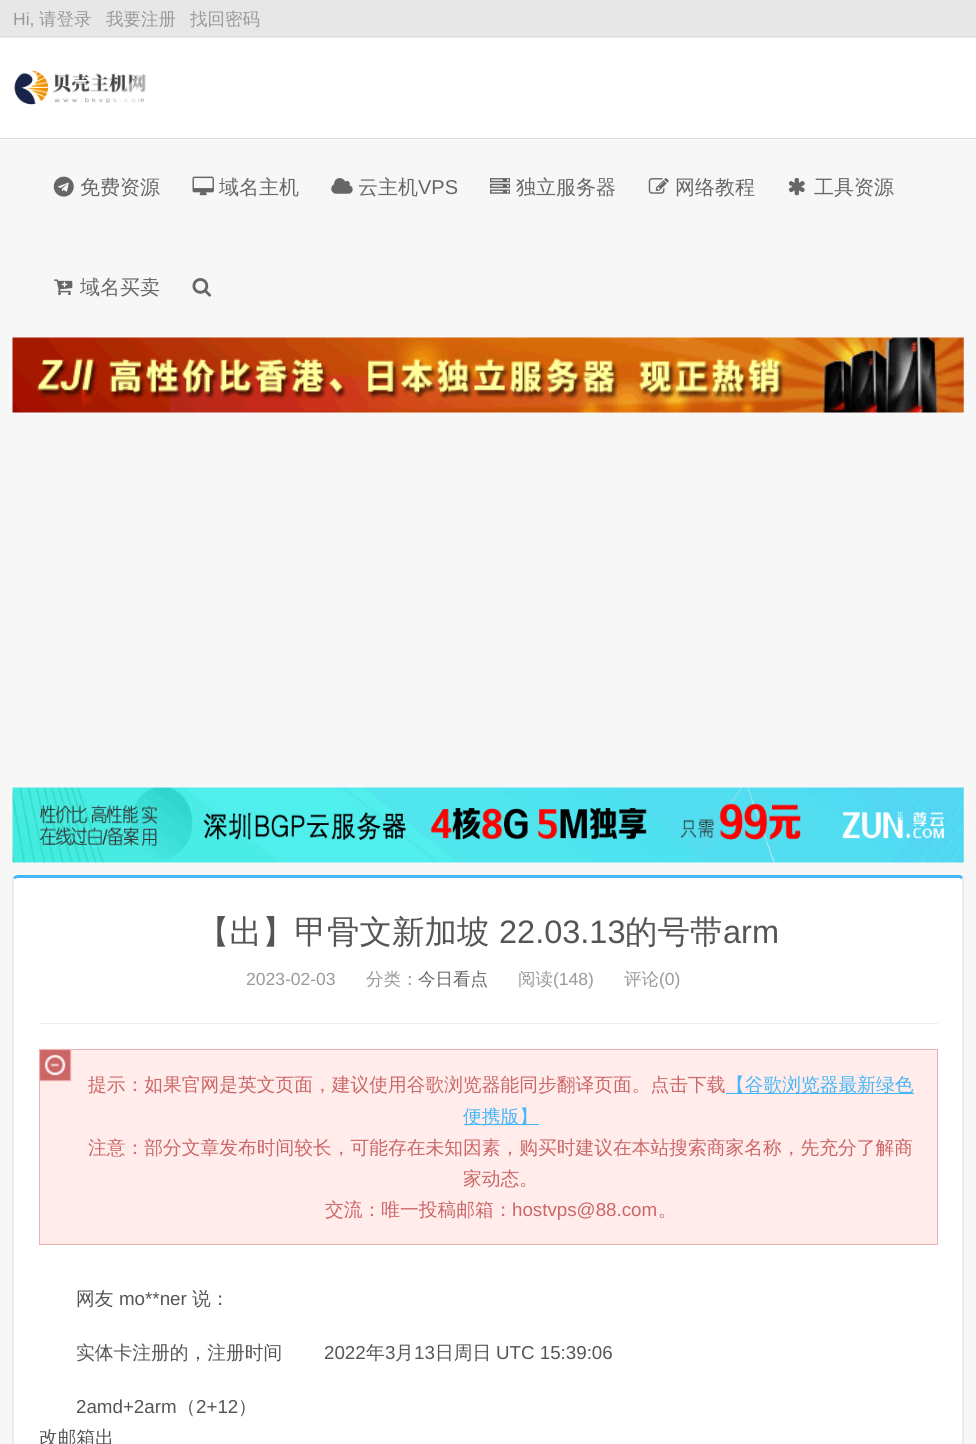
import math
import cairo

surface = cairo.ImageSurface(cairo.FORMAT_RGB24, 976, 1444)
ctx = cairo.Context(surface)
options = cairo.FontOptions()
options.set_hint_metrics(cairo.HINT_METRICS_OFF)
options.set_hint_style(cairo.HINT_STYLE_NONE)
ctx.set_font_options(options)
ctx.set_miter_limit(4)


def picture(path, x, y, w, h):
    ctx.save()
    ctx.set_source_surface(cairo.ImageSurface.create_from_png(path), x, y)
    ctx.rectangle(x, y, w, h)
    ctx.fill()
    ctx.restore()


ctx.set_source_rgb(0.965, 0.965, 0.965)
ctx.paint()
ctx.set_source_rgb(1, 1, 1)
ctx.rectangle(0, 38, 976, 100)
ctx.fill()
ctx.set_source_rgb(0.867, 0.867, 0.867)
ctx.rectangle(0, 138, 976, 1)
ctx.fill()
ctx.set_source_rgb(0.906, 0.906, 0.906)
ctx.rectangle(0, 0, 976, 38)
ctx.fill()
ctx.set_source_rgb(0.871, 0.871, 0.871)
ctx.rectangle(0, 36, 976, 1)
ctx.fill()
ctx.select_font_face("Liberation Sans")
ctx.set_font_size(17.5)
ctx.set_source_rgb(0.6, 0.6, 0.6)
ctx.move_to(13, 25)
ctx.show_text("Hi,")
ctx.select_font_face("WenQuanYi Zen Hei Medium")
ctx.move_to(39, 25)
ctx.show_text("请登录")
ctx.move_to(106, 25)
ctx.show_text("我要注册")
ctx.move_to(190, 25)
ctx.show_text("找回密码")
picture("img1.png", 14, 70, 132, 35)
ctx.save()
ctx.rectangle(13, 68, 140, 40)
ctx.clip()
ctx.set_source_rgba(1, 1, 1, 0.53)
ctx.new_path()
ctx.move_to(46, 167)
ctx.line_to(241, -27)
ctx.line_to(254, -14)
ctx.line_to(59, 181)
ctx.close_path()
ctx.fill()
ctx.restore()
picture("img2.png", 53, 176, 21, 21)
ctx.set_font_size(20)
ctx.set_source_rgb(0.4, 0.4, 0.4)
ctx.move_to(80, 194)
ctx.show_text("免费资源")
picture("img3.png", 192, 176, 22, 20)
ctx.move_to(219, 194)
ctx.show_text("域名主机")
picture("img4.png", 331, 178, 22, 16)
ctx.move_to(358, 194)
ctx.show_text("云主机")
ctx.select_font_face("Liberation Sans")
ctx.move_to(418, 194)
ctx.show_text("VPS")
picture("img5.png", 490, 178, 20, 16)
ctx.select_font_face("WenQuanYi Zen Hei Medium")
ctx.move_to(516, 194)
ctx.show_text("独立服务器")
picture("img6.png", 648, 178, 21, 16)
ctx.move_to(675, 194)
ctx.show_text("网络教程")
picture("img7.png", 788, 178, 17, 18)
ctx.move_to(814, 194)
ctx.show_text("工具资源")
picture("img8.png", 53, 279, 20, 17)
ctx.move_to(80, 294)
ctx.show_text("域名买卖")
picture("img9.png", 192, 278, 19, 19)
picture("img10.png", 12, 337, 952, 76)
picture("img11.png", 12, 787, 952, 76)
ctx.set_source_rgb(1, 1, 1)
ctx.new_path()
ctx.move_to(18, 878)
ctx.line_to(959, 878)
ctx.curve_to(961, 878, 962, 879, 962, 880)
ctx.line_to(962, 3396)
ctx.curve_to(962, 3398, 961, 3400, 959, 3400)
ctx.line_to(18, 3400)
ctx.curve_to(15, 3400, 14, 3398, 14, 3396)
ctx.line_to(14, 880)
ctx.curve_to(14, 879, 15, 878, 18, 878)
ctx.close_path()
ctx.fill()
ctx.set_source_rgb(0.271, 0.714, 0.969)
ctx.new_path()
ctx.move_to(18, 875)
ctx.curve_to(16, 875, 15, 876, 13, 877)
ctx.line_to(14, 879)
ctx.line_to(18, 878)
ctx.line_to(959, 878)
ctx.line_to(962, 879)
ctx.line_to(963, 877)
ctx.curve_to(962, 876, 961, 875, 959, 875)
ctx.close_path()
ctx.fill()
ctx.set_source_rgb(0.918, 0.918, 0.918)
ctx.new_path()
ctx.move_to(964, 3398)
ctx.line_to(962, 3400)
ctx.line_to(961, 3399)
ctx.line_to(962, 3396)
ctx.line_to(962, 879)
ctx.line_to(963, 877)
ctx.line_to(964, 878)
ctx.close_path()
ctx.fill()
ctx.new_path()
ctx.move_to(12, 878)
ctx.line_to(13, 877)
ctx.line_to(14, 879)
ctx.line_to(14, 880)
ctx.line_to(14, 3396)
ctx.line_to(15, 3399)
ctx.line_to(14, 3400)
ctx.line_to(12, 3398)
ctx.close_path()
ctx.fill()
ctx.set_source_rgb(0.933, 0.933, 0.933)
ctx.rectangle(39, 1023, 899, 1)
ctx.fill()
ctx.set_font_size(32.5)
ctx.set_source_rgb(0.333, 0.333, 0.333)
ctx.move_to(197, 943)
ctx.show_text("【出】甲骨文新加坡")
ctx.select_font_face("Liberation Sans")
ctx.move_to(499, 943)
ctx.show_text("22.03.13")
ctx.select_font_face("WenQuanYi Zen Hei Medium")
ctx.move_to(625, 943)
ctx.show_text("的号带")
ctx.select_font_face("Liberation Sans")
ctx.move_to(723, 943)
ctx.show_text("arm")
ctx.set_font_size(17.5)
ctx.set_source_rgb(0.6, 0.6, 0.6)
ctx.move_to(246, 985)
ctx.show_text("2023-02-03")
ctx.select_font_face("WenQuanYi Zen Hei Medium")
ctx.move_to(366, 985)
ctx.show_text("分类：")
ctx.set_source_rgb(0.4, 0.4, 0.4)
ctx.move_to(418, 985)
ctx.show_text("今日看点")
ctx.set_source_rgb(0.6, 0.6, 0.6)
ctx.move_to(518, 985)
ctx.show_text("阅读")
ctx.select_font_face("Liberation Sans")
ctx.move_to(553, 985)
ctx.show_text("(148)")
ctx.select_font_face("WenQuanYi Zen Hei Medium")
ctx.move_to(624, 985)
ctx.show_text("评论")
ctx.select_font_face("Liberation Sans")
ctx.move_to(659, 985)
ctx.show_text("(0)")
ctx.set_source_rgb(1, 0.925, 0.918)
ctx.rectangle(40, 1050, 897, 194)
ctx.fill()
picture("img12.png", 38, 1048, 34, 34)
ctx.rectangle(39.5, 1049.5, 898, 195)
ctx.set_source_rgb(0.922, 0.694, 0.694)
ctx.set_line_width(1)
ctx.stroke()
ctx.select_font_face("WenQuanYi Zen Hei Medium")
ctx.set_font_size(18.75)
ctx.set_source_rgb(0.8, 0.4, 0.4)
ctx.move_to(88, 1091)
ctx.show_text("提示：如果官网是英文页面，建议使用谷歌浏览器能同步翻译页面。点击下载")
ctx.set_source_rgb(0.271, 0.714, 0.969)
ctx.rectangle(726, 1093, 188, 1)
ctx.fill()
ctx.move_to(726, 1091)
ctx.show_text("【谷歌浏览器最新绿色")
ctx.rectangle(464, 1124, 75, 1)
ctx.fill()
ctx.move_to(463, 1123)
ctx.show_text("便携版】")
ctx.set_source_rgb(0.8, 0.4, 0.4)
ctx.move_to(88, 1154)
ctx.show_text("注意：部分文章发布时间较长，可能存在未知因素，购买时建议在本站搜索商家名称，先充分了解商")
ctx.move_to(463, 1185)
ctx.show_text("家动态。")
ctx.move_to(325, 1216)
ctx.show_text("交流：唯一投稿邮箱：")
ctx.select_font_face("Liberation Sans")
ctx.move_to(512, 1216)
ctx.show_text("hostvps@88.com")
ctx.select_font_face("WenQuanYi Zen Hei Medium")
ctx.move_to(658, 1216)
ctx.show_text("。")
ctx.set_source_rgb(0.333, 0.333, 0.333)
ctx.move_to(76, 1305)
ctx.show_text("网友")
ctx.select_font_face("Liberation Sans")
ctx.move_to(119, 1305)
ctx.show_text("mo**ner")
ctx.select_font_face("WenQuanYi Zen Hei Medium")
ctx.move_to(192, 1305)
ctx.show_text("说：")
ctx.move_to(76, 1359)
ctx.show_text("实体卡注册的，注册时间")
ctx.select_font_face("Liberation Sans")
ctx.move_to(324, 1359)
ctx.show_text("2022")
ctx.select_font_face("WenQuanYi Zen Hei Medium")
ctx.move_to(366, 1359)
ctx.show_text("年")
ctx.select_font_face("Liberation Sans")
ctx.move_to(385, 1359)
ctx.show_text("3")
ctx.select_font_face("WenQuanYi Zen Hei Medium")
ctx.move_to(395, 1359)
ctx.show_text("月")
ctx.select_font_face("Liberation Sans")
ctx.move_to(414, 1359)
ctx.show_text("13")
ctx.select_font_face("WenQuanYi Zen Hei Medium")
ctx.move_to(435, 1359)
ctx.show_text("日周日")
ctx.select_font_face("Liberation Sans")
ctx.move_to(496, 1359)
ctx.show_text("UTC 15:39:06")
ctx.move_to(76, 1413)
ctx.show_text("2amd+2arm")
ctx.select_font_face("WenQuanYi Zen Hei Medium")
ctx.move_to(177, 1413)
ctx.show_text("（")
ctx.select_font_face("Liberation Sans")
ctx.move_to(196, 1413)
ctx.show_text("2+12")
ctx.select_font_face("WenQuanYi Zen Hei Medium")
ctx.move_to(238, 1413)
ctx.show_text("）")
ctx.move_to(39, 1444)
ctx.show_text("改邮箱出")
surface.write_to_png("page.png")
